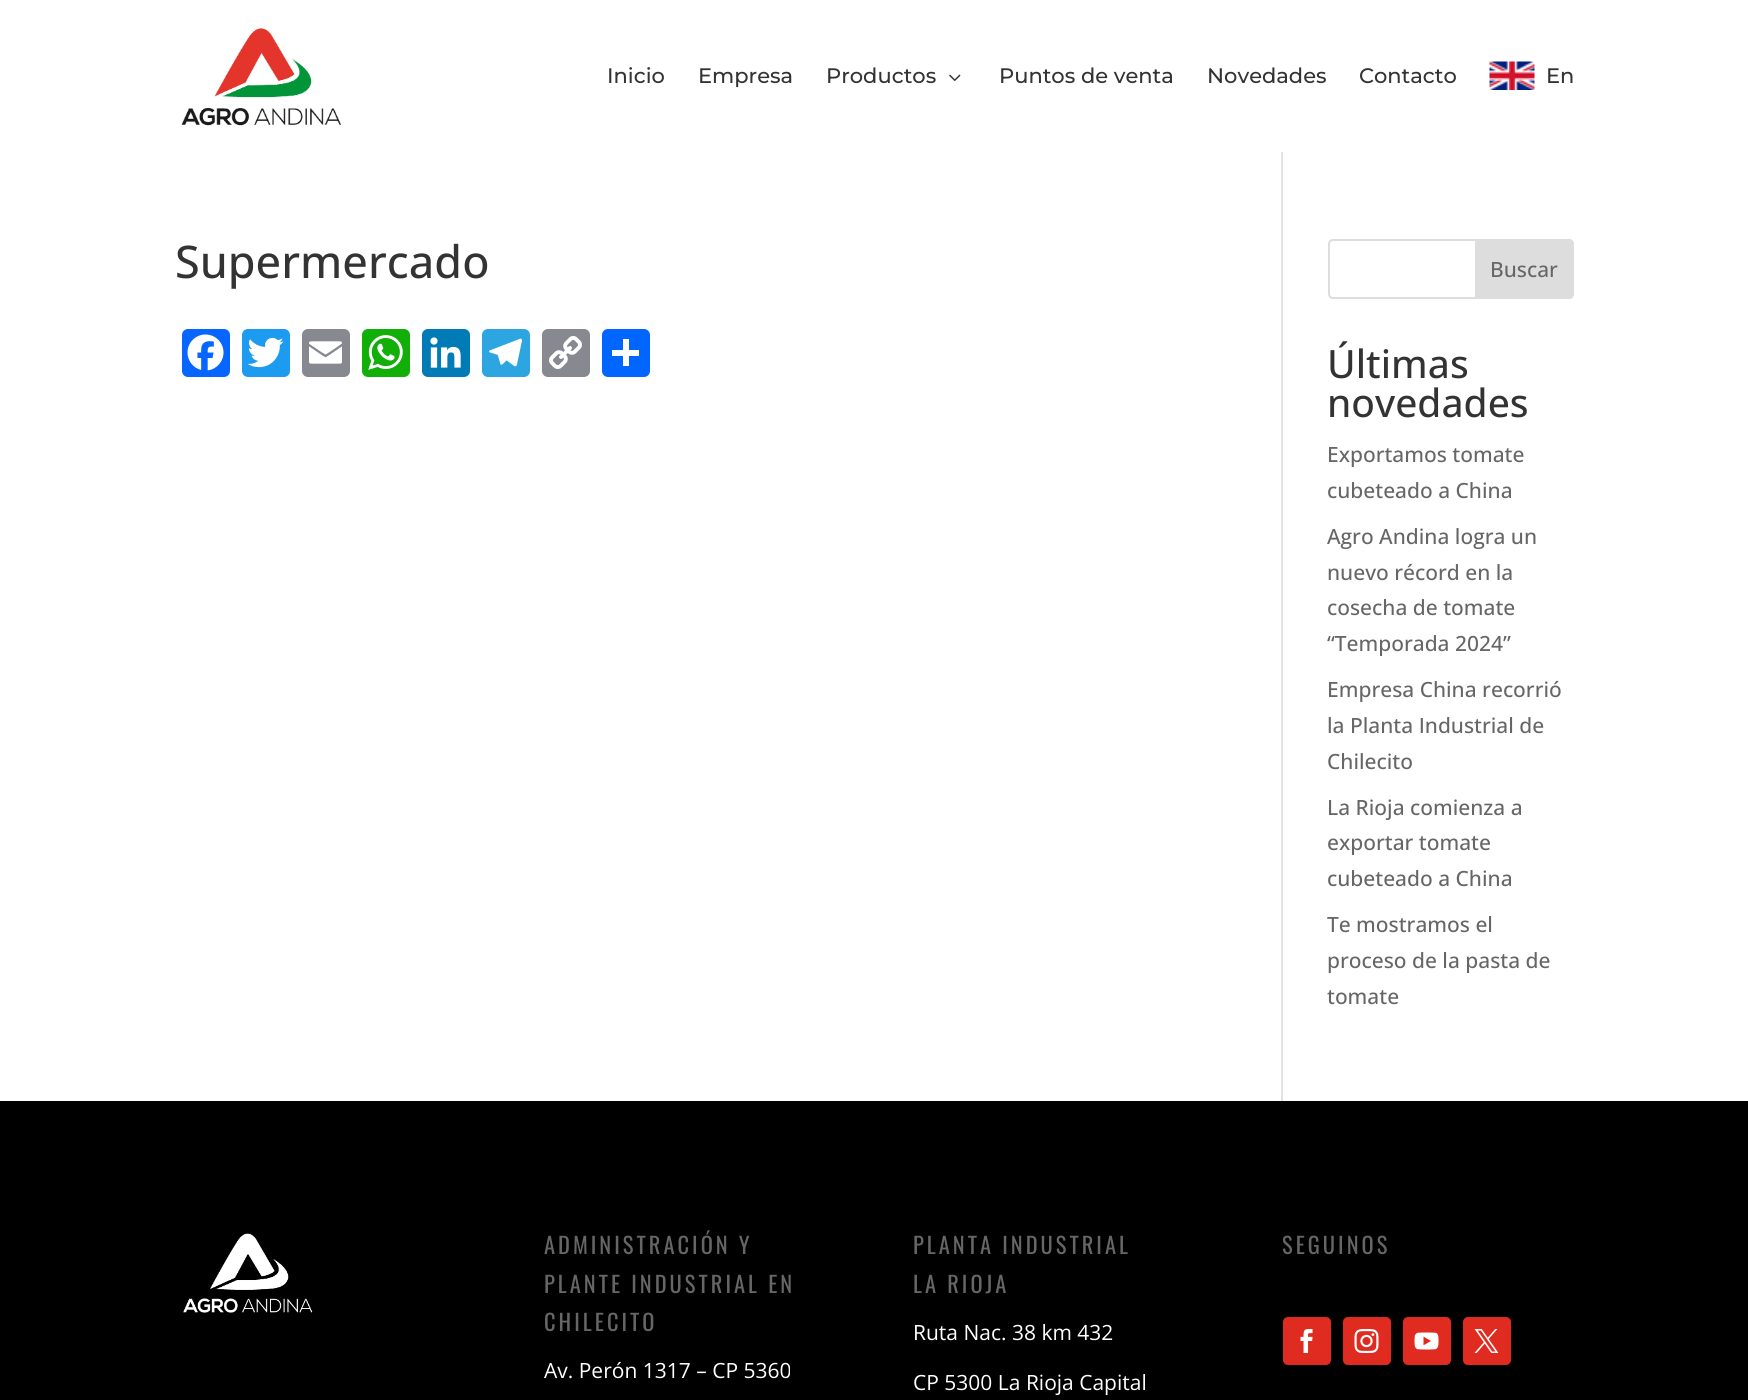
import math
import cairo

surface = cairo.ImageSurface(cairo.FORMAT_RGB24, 1748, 1400)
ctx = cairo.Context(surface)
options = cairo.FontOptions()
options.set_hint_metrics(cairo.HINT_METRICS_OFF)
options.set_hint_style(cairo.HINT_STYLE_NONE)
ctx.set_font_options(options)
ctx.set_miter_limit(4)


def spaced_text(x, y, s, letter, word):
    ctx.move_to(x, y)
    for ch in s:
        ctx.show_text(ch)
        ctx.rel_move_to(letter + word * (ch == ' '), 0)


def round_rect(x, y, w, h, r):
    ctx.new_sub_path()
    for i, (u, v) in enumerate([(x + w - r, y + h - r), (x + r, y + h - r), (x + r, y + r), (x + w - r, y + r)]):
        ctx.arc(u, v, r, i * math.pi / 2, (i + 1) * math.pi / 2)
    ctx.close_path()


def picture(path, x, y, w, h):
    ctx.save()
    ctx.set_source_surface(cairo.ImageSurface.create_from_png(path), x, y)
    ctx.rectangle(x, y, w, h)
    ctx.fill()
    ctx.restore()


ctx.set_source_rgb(1, 1, 1)
ctx.paint()
picture("img1.png", 181, 28, 160, 98)
ctx.select_font_face("Montserrat Thin")
ctx.set_font_size(21)
ctx.set_source_rgb(0.2, 0.2, 0.2)
ctx.move_to(607, 83)
ctx.show_text("Inicio")
ctx.move_to(698, 83)
ctx.show_text("Empresa")
ctx.move_to(826, 83)
ctx.show_text("Productos")
picture("img2.png", 949, 74, 12, 7)
ctx.move_to(999, 83)
ctx.show_text("Puntos de venta")
ctx.move_to(1207, 83)
ctx.show_text("Novedades")
ctx.move_to(1359, 83)
ctx.show_text("Contacto")
picture("img3.png", 1489, 61, 46, 29)
ctx.move_to(1546, 83)
ctx.show_text("En")
ctx.set_source_rgb(0.886, 0.886, 0.886)
ctx.rectangle(1281, 152, 2, 949)
ctx.fill()
ctx.select_font_face("Open Sans Medium")
ctx.set_font_size(45)
ctx.set_source_rgb(0.2, 0.2, 0.2)
ctx.move_to(175, 278)
ctx.show_text("Supermercado")
ctx.set_source_rgb(0.031, 0.4, 1)
round_rect(182, 329, 48, 48, 6)
ctx.fill()
picture("img4.png", 187, 334, 37, 37)
ctx.set_source_rgb(0.114, 0.608, 0.941)
round_rect(242, 329, 48, 48, 6)
ctx.fill()
picture("img5.png", 247, 337, 37, 31)
ctx.set_source_rgb(0.533, 0.537, 0.565)
round_rect(302, 329, 48, 48, 6)
ctx.fill()
picture("img6.png", 309, 341, 33, 23)
ctx.set_source_rgb(0.071, 0.686, 0.039)
round_rect(362, 329, 48, 48, 6)
ctx.fill()
picture("img7.png", 368, 335, 35, 35)
ctx.set_source_rgb(0, 0.482, 0.71)
round_rect(422, 329, 48, 48, 6)
ctx.fill()
picture("img8.png", 430, 337, 31, 31)
ctx.set_source_rgb(0.173, 0.647, 0.878)
round_rect(482, 329, 48, 48, 6)
ctx.fill()
picture("img9.png", 489, 338, 33, 29)
ctx.set_source_rgb(0.533, 0.537, 0.565)
round_rect(542, 329, 48, 48, 6)
ctx.fill()
picture("img10.png", 549, 336, 33, 33)
ctx.set_source_rgb(0.004, 0.4, 1)
round_rect(602, 329, 48, 48, 6)
ctx.fill()
ctx.set_source_rgb(1, 1, 1)
ctx.rectangle(623, 339, 6, 27)
ctx.fill()
ctx.rectangle(612, 350, 27, 6)
ctx.fill()
round_rect(1329, 240, 244, 58, 4)
ctx.set_source_rgb(0.867, 0.867, 0.867)
ctx.stroke()
ctx.new_path()
ctx.move_to(1476, 240)
ctx.line_to(1569, 240)
ctx.curve_to(1571, 240, 1573, 242, 1573, 244)
ctx.line_to(1573, 294)
ctx.curve_to(1573, 296, 1571, 298, 1569, 298)
ctx.line_to(1476, 298)
ctx.close_path()
ctx.fill_preserve()
ctx.stroke()
ctx.set_font_size(21)
ctx.set_source_rgb(0.4, 0.4, 0.4)
ctx.move_to(1490, 277)
ctx.show_text("Buscar")
ctx.set_font_size(39)
ctx.set_source_rgb(0.2, 0.2, 0.2)
ctx.move_to(1327, 378)
ctx.show_text("Últimas")
ctx.move_to(1327, 417)
ctx.show_text("novedades")
ctx.set_font_size(21)
ctx.set_source_rgb(0.4, 0.4, 0.4)
ctx.move_to(1327, 462)
ctx.show_text("Exportamos tomate")
ctx.move_to(1327, 498)
ctx.show_text("cubeteado a China")
ctx.move_to(1327, 544)
ctx.show_text("Agro Andina logra un")
ctx.move_to(1327, 580)
ctx.show_text("nuevo récord en la")
ctx.move_to(1327, 615)
ctx.show_text("cosecha de tomate")
ctx.move_to(1327, 651)
ctx.show_text("“Temporada 2024”")
ctx.move_to(1327, 697)
ctx.show_text("Empresa China recorrió")
ctx.move_to(1327, 733)
ctx.show_text("la Planta Industrial de")
ctx.move_to(1327, 769)
ctx.show_text("Chilecito")
ctx.move_to(1327, 815)
ctx.show_text("La Rioja comienza a")
ctx.move_to(1327, 850)
ctx.show_text("exportar tomate")
ctx.move_to(1327, 886)
ctx.show_text("cubeteado a China")
ctx.move_to(1327, 932)
ctx.show_text("Te mostramos el")
ctx.move_to(1327, 968)
ctx.show_text("proceso de la pasta de")
ctx.move_to(1327, 1004)
ctx.show_text("tomate")
ctx.set_source_rgb(0, 0, 0)
ctx.rectangle(0, 1101, 1748, 299)
ctx.fill()
picture("img11.png", 183, 1233, 130, 80)
ctx.select_font_face("Oswald")
ctx.set_font_size(22.5)
ctx.set_source_rgb(0.4, 0.4, 0.4)
spaced_text(544, 1254, "ADMINISTRACIÓN Y", 3, 0)
spaced_text(544, 1293, "PLANTE INDUSTRIAL EN", 3, 0)
spaced_text(544, 1331, "CHILECITO", 3, 0)
ctx.select_font_face("Open Sans")
ctx.set_font_size(21)
ctx.set_source_rgb(1, 1, 1)
ctx.move_to(544, 1378)
ctx.show_text("Av. Perón 1317 – CP 5360")
ctx.select_font_face("Oswald")
ctx.set_font_size(22.5)
ctx.set_source_rgb(0.4, 0.4, 0.4)
spaced_text(913, 1254, "PLANTA INDUSTRIAL", 3, 0)
spaced_text(913, 1293, "LA RIOJA", 3, 0)
ctx.select_font_face("Open Sans")
ctx.set_font_size(21)
ctx.set_source_rgb(1, 1, 1)
ctx.move_to(913, 1340)
ctx.show_text("Ruta Nac. 38 km 432")
ctx.move_to(913, 1390)
ctx.show_text("CP 5300 La Rioja Capital")
ctx.select_font_face("Oswald")
ctx.set_font_size(22.5)
ctx.set_source_rgb(0.4, 0.4, 0.4)
spaced_text(1282, 1254, "SEGUINOS", 3, 0)
ctx.set_source_rgb(0.878, 0.169, 0.125)
round_rect(1283, 1317, 48, 48, 5)
ctx.fill()
picture("img12.png", 1300, 1329, 13, 24)
round_rect(1343, 1317, 48, 48, 5)
ctx.fill()
picture("img13.png", 1354, 1329, 25, 24)
round_rect(1403, 1317, 48, 48, 5)
ctx.fill()
picture("img14.png", 1414, 1332, 25, 18)
round_rect(1463, 1317, 48, 48, 5)
ctx.fill()
picture("img15.png", 1474, 1329, 25, 24)
surface.write_to_png("page.png")
